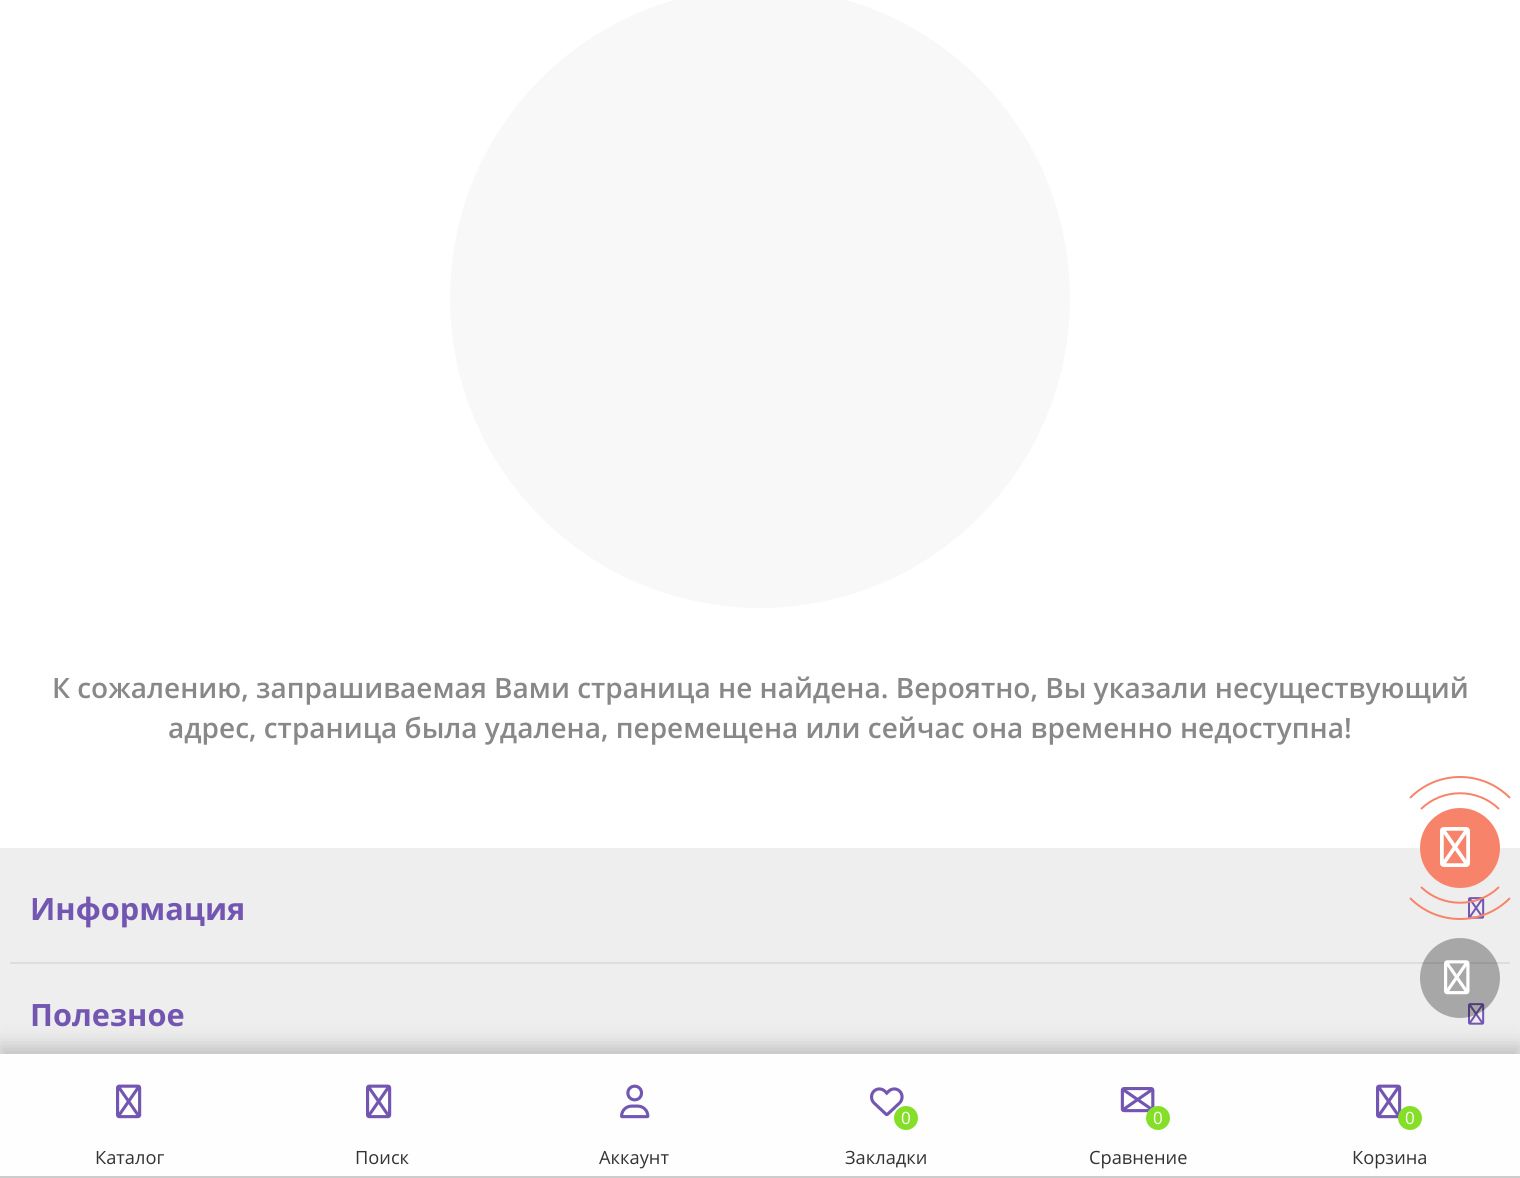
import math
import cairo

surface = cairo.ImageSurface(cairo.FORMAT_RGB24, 1520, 1178)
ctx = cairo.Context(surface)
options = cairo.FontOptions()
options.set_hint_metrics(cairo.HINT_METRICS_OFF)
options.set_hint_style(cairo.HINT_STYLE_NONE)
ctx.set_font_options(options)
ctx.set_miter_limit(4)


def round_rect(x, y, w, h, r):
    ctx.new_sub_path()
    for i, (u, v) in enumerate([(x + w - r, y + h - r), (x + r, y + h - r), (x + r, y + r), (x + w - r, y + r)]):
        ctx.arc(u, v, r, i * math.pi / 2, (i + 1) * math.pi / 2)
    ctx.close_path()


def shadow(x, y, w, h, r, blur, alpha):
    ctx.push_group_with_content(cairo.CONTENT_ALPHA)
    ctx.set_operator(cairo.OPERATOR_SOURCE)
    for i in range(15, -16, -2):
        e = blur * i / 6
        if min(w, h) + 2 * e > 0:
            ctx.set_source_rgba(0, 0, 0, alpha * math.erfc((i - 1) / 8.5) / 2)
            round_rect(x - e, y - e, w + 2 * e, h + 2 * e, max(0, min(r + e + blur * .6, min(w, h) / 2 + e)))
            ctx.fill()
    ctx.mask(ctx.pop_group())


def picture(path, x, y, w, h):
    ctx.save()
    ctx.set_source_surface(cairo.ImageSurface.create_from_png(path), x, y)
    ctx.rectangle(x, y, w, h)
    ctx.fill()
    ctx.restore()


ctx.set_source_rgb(1, 1, 1)
ctx.paint()
ctx.set_source_rgb(0.969, 0.969, 0.969)
ctx.arc(760, 298, 310, 0, 2 * math.pi)
ctx.fill()
ctx.select_font_face("Open Sans SemiBold")
ctx.set_font_size(28)
ctx.set_source_rgb(0.533, 0.533, 0.533)
ctx.move_to(52, 698)
ctx.show_text("К сожалению, запрашиваемая Вами страница не найдена. Вероятно, Вы указали несуществующий")
ctx.move_to(168, 738)
ctx.show_text("адрес, страница была удалена, перемещена или сейчас она временно недоступна!")
ctx.set_source_rgb(0.933, 0.933, 0.933)
ctx.rectangle(0, 848, 1520, 206)
ctx.fill()
ctx.select_font_face("Open Sans", cairo.FONT_SLANT_NORMAL, cairo.FONT_WEIGHT_BOLD)
ctx.set_font_size(30.75)
ctx.set_source_rgb(0.451, 0.337, 0.694)
ctx.move_to(30, 920)
ctx.show_text("Информация")
picture("img1.png", 1468, 897, 17, 22)
ctx.set_source_rgb(0.867, 0.867, 0.867)
ctx.rectangle(10, 962, 1500, 2)
ctx.fill()
ctx.set_source_rgb(0.451, 0.337, 0.694)
ctx.move_to(30, 1026)
ctx.show_text("Полезное")
picture("img1.png", 1468, 1003, 17, 22)
ctx.set_source_rgb(0.965, 0.518, 0.416)
ctx.arc(1460, 848, 40, 0, 2 * math.pi)
ctx.fill()
ctx.new_path()
ctx.move_to(1421, 809)
ctx.curve_to(1442.5, 788, 1477.5, 788, 1499, 809)
ctx.stroke()
ctx.new_path()
ctx.move_to(1410, 798)
ctx.curve_to(1437.5, 770, 1482.5, 770, 1510, 798)
ctx.stroke()
ctx.new_path()
ctx.move_to(1499, 887)
ctx.curve_to(1477.5, 908, 1442.5, 908, 1421, 887)
ctx.stroke()
ctx.new_path()
ctx.move_to(1510, 898)
ctx.curve_to(1482.5, 926, 1437.5, 926, 1410, 898)
ctx.stroke()
picture("img2.png", 1440, 827, 30, 40)
ctx.set_source_rgb(0, 0, 0)
shadow(0, 1046, 1520, 124, 0, 10, 0.2)
ctx.set_source_rgba(0, 0, 0, 0.3)
ctx.arc(1460, 978, 40, 0, 2 * math.pi)
ctx.fill()
picture("img3.png", 1444, 960, 26, 35)
ctx.set_source_rgb(0.996, 0.996, 0.996)
ctx.rectangle(0, 1054, 1520, 122)
ctx.fill()
ctx.set_source_rgb(0.8, 0.8, 0.8)
ctx.rectangle(0, 1176, 1520, 2)
ctx.fill()
picture("img4.png", 116, 1084, 26, 35)
ctx.select_font_face("Open Sans")
ctx.set_font_size(18.25)
ctx.set_source_rgb(0.2, 0.2, 0.2)
ctx.move_to(95, 1164)
ctx.show_text("Каталог")
picture("img4.png", 366, 1084, 26, 35)
ctx.move_to(355, 1164)
ctx.show_text("Поиск")
picture("img5.png", 620, 1084, 30, 35)
ctx.move_to(599, 1164)
ctx.show_text("Аккаунт")
picture("img6.png", 870, 1087, 34, 30)
ctx.set_source_rgb(0.522, 0.875, 0.157)
ctx.arc(906, 1118, 12, 0, 2 * math.pi)
ctx.fill()
ctx.set_font_size(17)
ctx.set_source_rgb(1, 1, 1)
ctx.move_to(901, 1124)
ctx.show_text("0")
ctx.set_font_size(18.25)
ctx.set_source_rgb(0.2, 0.2, 0.2)
ctx.move_to(845, 1164)
ctx.show_text("Закладки")
picture("img7.png", 1120, 1087, 35, 26)
ctx.set_source_rgb(0.522, 0.875, 0.157)
ctx.arc(1158, 1118, 12, 0, 2 * math.pi)
ctx.fill()
ctx.set_font_size(17)
ctx.set_source_rgb(1, 1, 1)
ctx.move_to(1153, 1124)
ctx.show_text("0")
ctx.set_font_size(18.25)
ctx.set_source_rgb(0.2, 0.2, 0.2)
ctx.move_to(1089, 1164)
ctx.show_text("Сравнение")
picture("img4.png", 1376, 1084, 26, 35)
ctx.set_source_rgb(0.522, 0.875, 0.157)
ctx.arc(1410, 1118, 12, 0, 2 * math.pi)
ctx.fill()
ctx.set_font_size(17)
ctx.set_source_rgb(1, 1, 1)
ctx.move_to(1405, 1124)
ctx.show_text("0")
ctx.set_font_size(18.25)
ctx.set_source_rgb(0.2, 0.2, 0.2)
ctx.move_to(1352, 1164)
ctx.show_text("Корзина")
surface.write_to_png("page.png")
